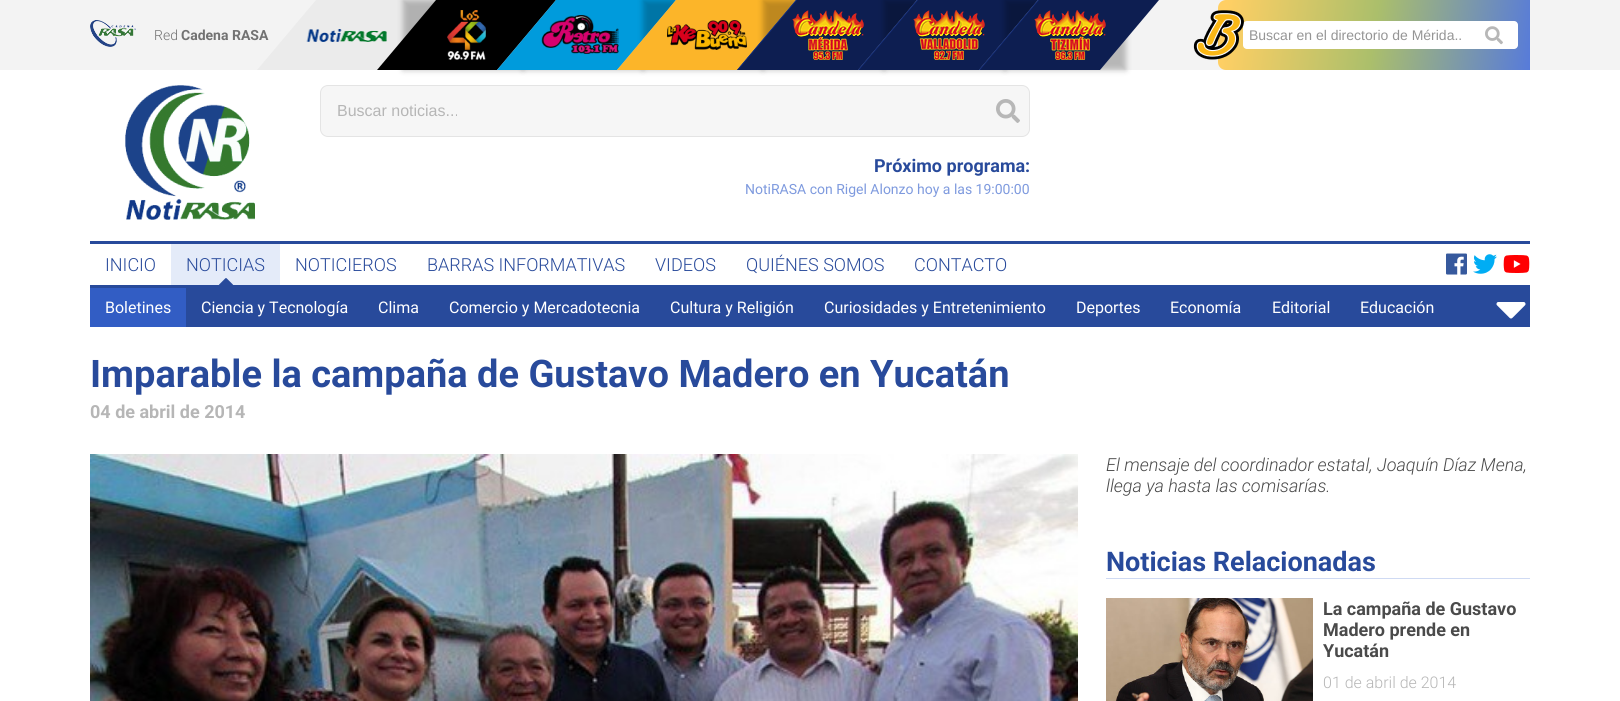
import math
import cairo

surface = cairo.ImageSurface(cairo.FORMAT_RGB24, 1620, 701)
ctx = cairo.Context(surface)
options = cairo.FontOptions()
options.set_hint_metrics(cairo.HINT_METRICS_OFF)
options.set_hint_style(cairo.HINT_STYLE_NONE)
ctx.set_font_options(options)
ctx.set_miter_limit(4)


def round_rect(x, y, w, h, r):
    ctx.new_sub_path()
    for i, (u, v) in enumerate([(x + w - r, y + h - r), (x + r, y + h - r), (x + r, y + r), (x + w - r, y + r)]):
        ctx.arc(u, v, r, i * math.pi / 2, (i + 1) * math.pi / 2)
    ctx.close_path()


def shadow(x, y, w, h, r, blur, alpha):
    ctx.push_group_with_content(cairo.CONTENT_ALPHA)
    ctx.set_operator(cairo.OPERATOR_SOURCE)
    for i in range(15, -16, -2):
        e = blur * i / 6
        if min(w, h) + 2 * e > 0:
            ctx.set_source_rgba(0, 0, 0, alpha * math.erfc((i - 1) / 8.5) / 2)
            round_rect(x - e, y - e, w + 2 * e, h + 2 * e, max(0, min(r + e + blur * .6, min(w, h) / 2 + e)))
            ctx.fill()
    ctx.mask(ctx.pop_group())


def picture(path, x, y, w, h):
    ctx.save()
    ctx.set_source_surface(cairo.ImageSurface.create_from_png(path), x, y)
    ctx.rectangle(x, y, w, h)
    ctx.fill()
    ctx.restore()


ctx.set_source_rgb(1, 1, 1)
ctx.paint()
ctx.set_source_rgb(0.953, 0.953, 0.953)
ctx.rectangle(0, 0, 1620, 70)
ctx.fill()
picture("img1.png", 90, 20, 46, 27)
ctx.select_font_face("Roboto Light")
ctx.set_font_size(14)
ctx.set_source_rgb(0.447, 0.447, 0.447)
ctx.move_to(154, 40)
ctx.show_text("Red")
ctx.select_font_face("Roboto", cairo.FONT_SLANT_NORMAL, cairo.FONT_WEIGHT_BOLD)
ctx.move_to(181, 40)
ctx.show_text("Cadena RASA")
ctx.set_source_rgb(0.918, 0.918, 0.918)
ctx.new_path()
ctx.move_to(316, 0)
ctx.line_to(436, 0)
ctx.line_to(377, 70)
ctx.line_to(257, 70)
ctx.close_path()
ctx.fill()
picture("img2.png", 306, 29, 81, 13)
ctx.set_source_rgb(0, 0, 0)
shadow(403, 0, 120, 70, 0, 3, 0.25)
ctx.set_source_rgb(0, 0, 0)
ctx.new_path()
ctx.move_to(436, 0)
ctx.line_to(556, 0)
ctx.line_to(497, 70)
ctx.line_to(377, 70)
ctx.close_path()
ctx.fill()
picture("img3.png", 447, 10, 39, 50)
ctx.set_source_rgb(0, 0, 0)
shadow(523, 0, 120, 70, 0, 3, 0.25)
ctx.set_source_rgb(0, 0.608, 0.863)
ctx.new_path()
ctx.move_to(556, 0)
ctx.line_to(676, 0)
ctx.line_to(617, 70)
ctx.line_to(497, 70)
ctx.close_path()
ctx.fill()
picture("img4.png", 541, 15, 78, 39)
ctx.set_source_rgb(0, 0, 0)
shadow(643, 0, 120, 70, 0, 3, 0.25)
ctx.set_source_rgb(0.988, 0.71, 0.161)
ctx.new_path()
ctx.move_to(676, 0)
ctx.line_to(796, 0)
ctx.line_to(737, 70)
ctx.line_to(617, 70)
ctx.close_path()
ctx.fill()
picture("img5.png", 667, 20, 80, 30)
ctx.set_source_rgb(0, 0, 0)
shadow(763, 0, 121, 70, 0, 3, 0.25)
ctx.set_source_rgb(0.051, 0.118, 0.318)
ctx.new_path()
ctx.move_to(796, 0)
ctx.line_to(917, 0)
ctx.line_to(858, 70)
ctx.line_to(737, 70)
ctx.close_path()
ctx.fill()
ctx.set_source_rgb(0.078, 0.18, 0.49)
ctx.new_path()
ctx.move_to(796, 0)
ctx.line_to(797, 0)
ctx.line_to(738, 70)
ctx.line_to(737, 70)
ctx.close_path()
ctx.fill()
picture("img6.png", 792, 10, 72, 50)
ctx.set_source_rgb(0, 0, 0)
shadow(884, 0, 121, 70, 0, 3, 0.25)
ctx.set_source_rgb(0.051, 0.118, 0.318)
ctx.new_path()
ctx.move_to(917, 0)
ctx.line_to(1038, 0)
ctx.line_to(979, 70)
ctx.line_to(858, 70)
ctx.close_path()
ctx.fill()
ctx.set_source_rgb(0.078, 0.18, 0.49)
ctx.new_path()
ctx.move_to(917, 0)
ctx.line_to(918, 0)
ctx.line_to(859, 70)
ctx.line_to(858, 70)
ctx.close_path()
ctx.fill()
picture("img7.png", 913, 10, 72, 50)
ctx.set_source_rgb(0, 0, 0)
shadow(1005, 0, 121, 70, 0, 3, 0.25)
ctx.set_source_rgb(0.051, 0.118, 0.318)
ctx.new_path()
ctx.move_to(1038, 0)
ctx.line_to(1159, 0)
ctx.line_to(1100, 70)
ctx.line_to(979, 70)
ctx.close_path()
ctx.fill()
ctx.set_source_rgb(0.078, 0.18, 0.49)
ctx.new_path()
ctx.move_to(1038, 0)
ctx.line_to(1039, 0)
ctx.line_to(980, 70)
ctx.line_to(979, 70)
ctx.close_path()
ctx.fill()
picture("img8.png", 1034, 10, 72, 50)
gradient = cairo.LinearGradient(1216, 13, 1532, 57)
gradient.add_color_stop_rgba(0.03, 1, 0.812, 0.392, 1)
gradient.add_color_stop_rgba(0.5, 0.671, 0.749, 0.42, 1)
gradient.add_color_stop_rgba(1, 0.341, 0.482, 0.855, 1)
ctx.set_source(gradient)
ctx.new_path()
ctx.move_to(1226, 0)
ctx.line_to(1530, 0)
ctx.line_to(1530, 70)
ctx.line_to(1226, 70)
ctx.curve_to(1221.5, 70, 1218, 66.5, 1218, 62)
ctx.line_to(1218, 8)
ctx.curve_to(1218, 3.5, 1221.5, 0, 1226, 0)
ctx.close_path()
ctx.fill()
ctx.set_source_rgb(1, 1, 1)
round_rect(1243, 21, 275, 28, 4)
ctx.fill()
picture("img9.png", 1193, 10, 51, 50)
ctx.select_font_face("Liberation Sans")
ctx.set_source_rgb(0.584, 0.584, 0.584)
ctx.move_to(1249, 40)
ctx.show_text("Buscar en el directorio de Mérida..")
picture("img10.png", 1485, 26, 18, 19)
picture("img11.png", 125, 85, 130, 135)
ctx.set_source_rgb(0.961, 0.961, 0.961)
round_rect(320.5, 85.5, 709, 51, 7.5)
ctx.fill_preserve()
ctx.set_source_rgb(0.894, 0.894, 0.894)
ctx.set_line_width(1)
ctx.stroke()
ctx.set_font_size(16)
ctx.set_source_rgb(0.714, 0.714, 0.714)
ctx.move_to(337, 116)
ctx.show_text("Buscar noticias...")
picture("img12.png", 996, 99, 24, 24)
ctx.select_font_face("Roboto", cairo.FONT_SLANT_NORMAL, cairo.FONT_WEIGHT_BOLD)
ctx.set_font_size(18)
ctx.set_source_rgb(0.157, 0.29, 0.608)
ctx.move_to(874, 172)
ctx.show_text("Próximo programa:")
ctx.select_font_face("Roboto")
ctx.set_font_size(14)
ctx.set_source_rgb(0.494, 0.604, 0.871)
ctx.move_to(745, 194)
ctx.show_text("NotiRASA con Rigel Alonzo hoy a las 19:00:00")
ctx.set_source_rgb(0.157, 0.29, 0.608)
ctx.rectangle(90, 241, 1440, 3)
ctx.fill()
ctx.rectangle(90, 285, 1440, 3)
ctx.fill()
ctx.select_font_face("Roboto Light")
ctx.set_font_size(18)
ctx.move_to(105, 271)
ctx.show_text("INICIO")
ctx.set_source_rgb(0.894, 0.918, 0.973)
ctx.rectangle(171, 244, 109, 41)
ctx.fill()
ctx.set_source_rgb(0.157, 0.29, 0.608)
ctx.move_to(186, 271)
ctx.show_text("NOTICIAS")
picture("img13.png", 218, 278, 16, 7)
ctx.move_to(295, 271)
ctx.show_text("NOTICIEROS")
ctx.move_to(427, 271)
ctx.show_text("BARRAS INFORMATIVAS")
ctx.move_to(655, 271)
ctx.show_text("VIDEOS")
ctx.move_to(746, 271)
ctx.show_text("QUIÉNES SOMOS")
ctx.move_to(914, 271)
ctx.show_text("CONTACTO")
picture("img14.png", 1446, 253, 21, 22)
picture("img15.png", 1473, 254, 24, 20)
picture("img16.png", 1503, 255, 27, 18)
ctx.rectangle(186, 288, 1344, 39)
ctx.fill()
ctx.set_source_rgb(0.196, 0.365, 0.769)
ctx.rectangle(90, 288, 96, 39)
ctx.fill()
ctx.select_font_face("Roboto")
ctx.set_font_size(16)
ctx.set_source_rgb(1, 1, 1)
ctx.move_to(105, 313)
ctx.show_text("Boletines")
ctx.move_to(201, 313)
ctx.show_text("Ciencia y Tecnología")
ctx.move_to(378, 313)
ctx.show_text("Clima")
ctx.move_to(449, 313)
ctx.show_text("Comercio y Mercadotecnia")
ctx.move_to(670, 313)
ctx.show_text("Cultura y Religión")
ctx.move_to(824, 313)
ctx.show_text("Curiosidades y Entretenimiento")
ctx.move_to(1076, 313)
ctx.show_text("Deportes")
ctx.move_to(1170, 313)
ctx.show_text("Economía")
ctx.move_to(1272, 313)
ctx.show_text("Editorial")
ctx.move_to(1360, 313)
ctx.show_text("Educación")
picture("img17.png", 1496, 302, 30, 17)
ctx.select_font_face("Roboto", cairo.FONT_SLANT_NORMAL, cairo.FONT_WEIGHT_BOLD)
ctx.set_font_size(38)
ctx.set_source_rgb(0.157, 0.29, 0.608)
ctx.move_to(90, 387)
ctx.show_text("Imparable la campaña de Gustavo Madero en Yucatán")
ctx.set_font_size(18)
ctx.set_source_rgb(0.714, 0.714, 0.714)
ctx.move_to(90, 418)
ctx.show_text("04 de abril de 2014")
picture("img18.png", 90, 454, 988, 247)
ctx.select_font_face("Roboto Light", cairo.FONT_SLANT_ITALIC)
ctx.set_source_rgb(0.29, 0.29, 0.29)
ctx.move_to(1106, 471)
ctx.show_text("El mensaje del coordinador estatal, Joaquín Díaz Mena,")
ctx.move_to(1106, 492)
ctx.show_text("llega ya hasta las comisarías.")
ctx.set_source_rgb(0.812, 0.855, 0.953)
ctx.rectangle(1106, 578, 424, 1)
ctx.fill()
ctx.select_font_face("Roboto", cairo.FONT_SLANT_NORMAL, cairo.FONT_WEIGHT_BOLD)
ctx.set_font_size(27)
ctx.set_source_rgb(0.157, 0.29, 0.608)
ctx.move_to(1106, 571)
ctx.show_text("Noticias Relacionadas")
picture("img19.png", 1106, 598, 207, 103)
ctx.set_font_size(18)
ctx.set_source_rgb(0.29, 0.29, 0.29)
ctx.move_to(1323, 615)
ctx.show_text("La campaña de Gustavo")
ctx.move_to(1323, 636)
ctx.show_text("Madero prende en")
ctx.move_to(1323, 657)
ctx.show_text("Yucatán")
ctx.select_font_face("Roboto Light")
ctx.set_font_size(16)
ctx.set_source_rgb(0.714, 0.714, 0.714)
ctx.move_to(1323, 688)
ctx.show_text("01 de abril de 2014")
surface.write_to_png("page.png")
